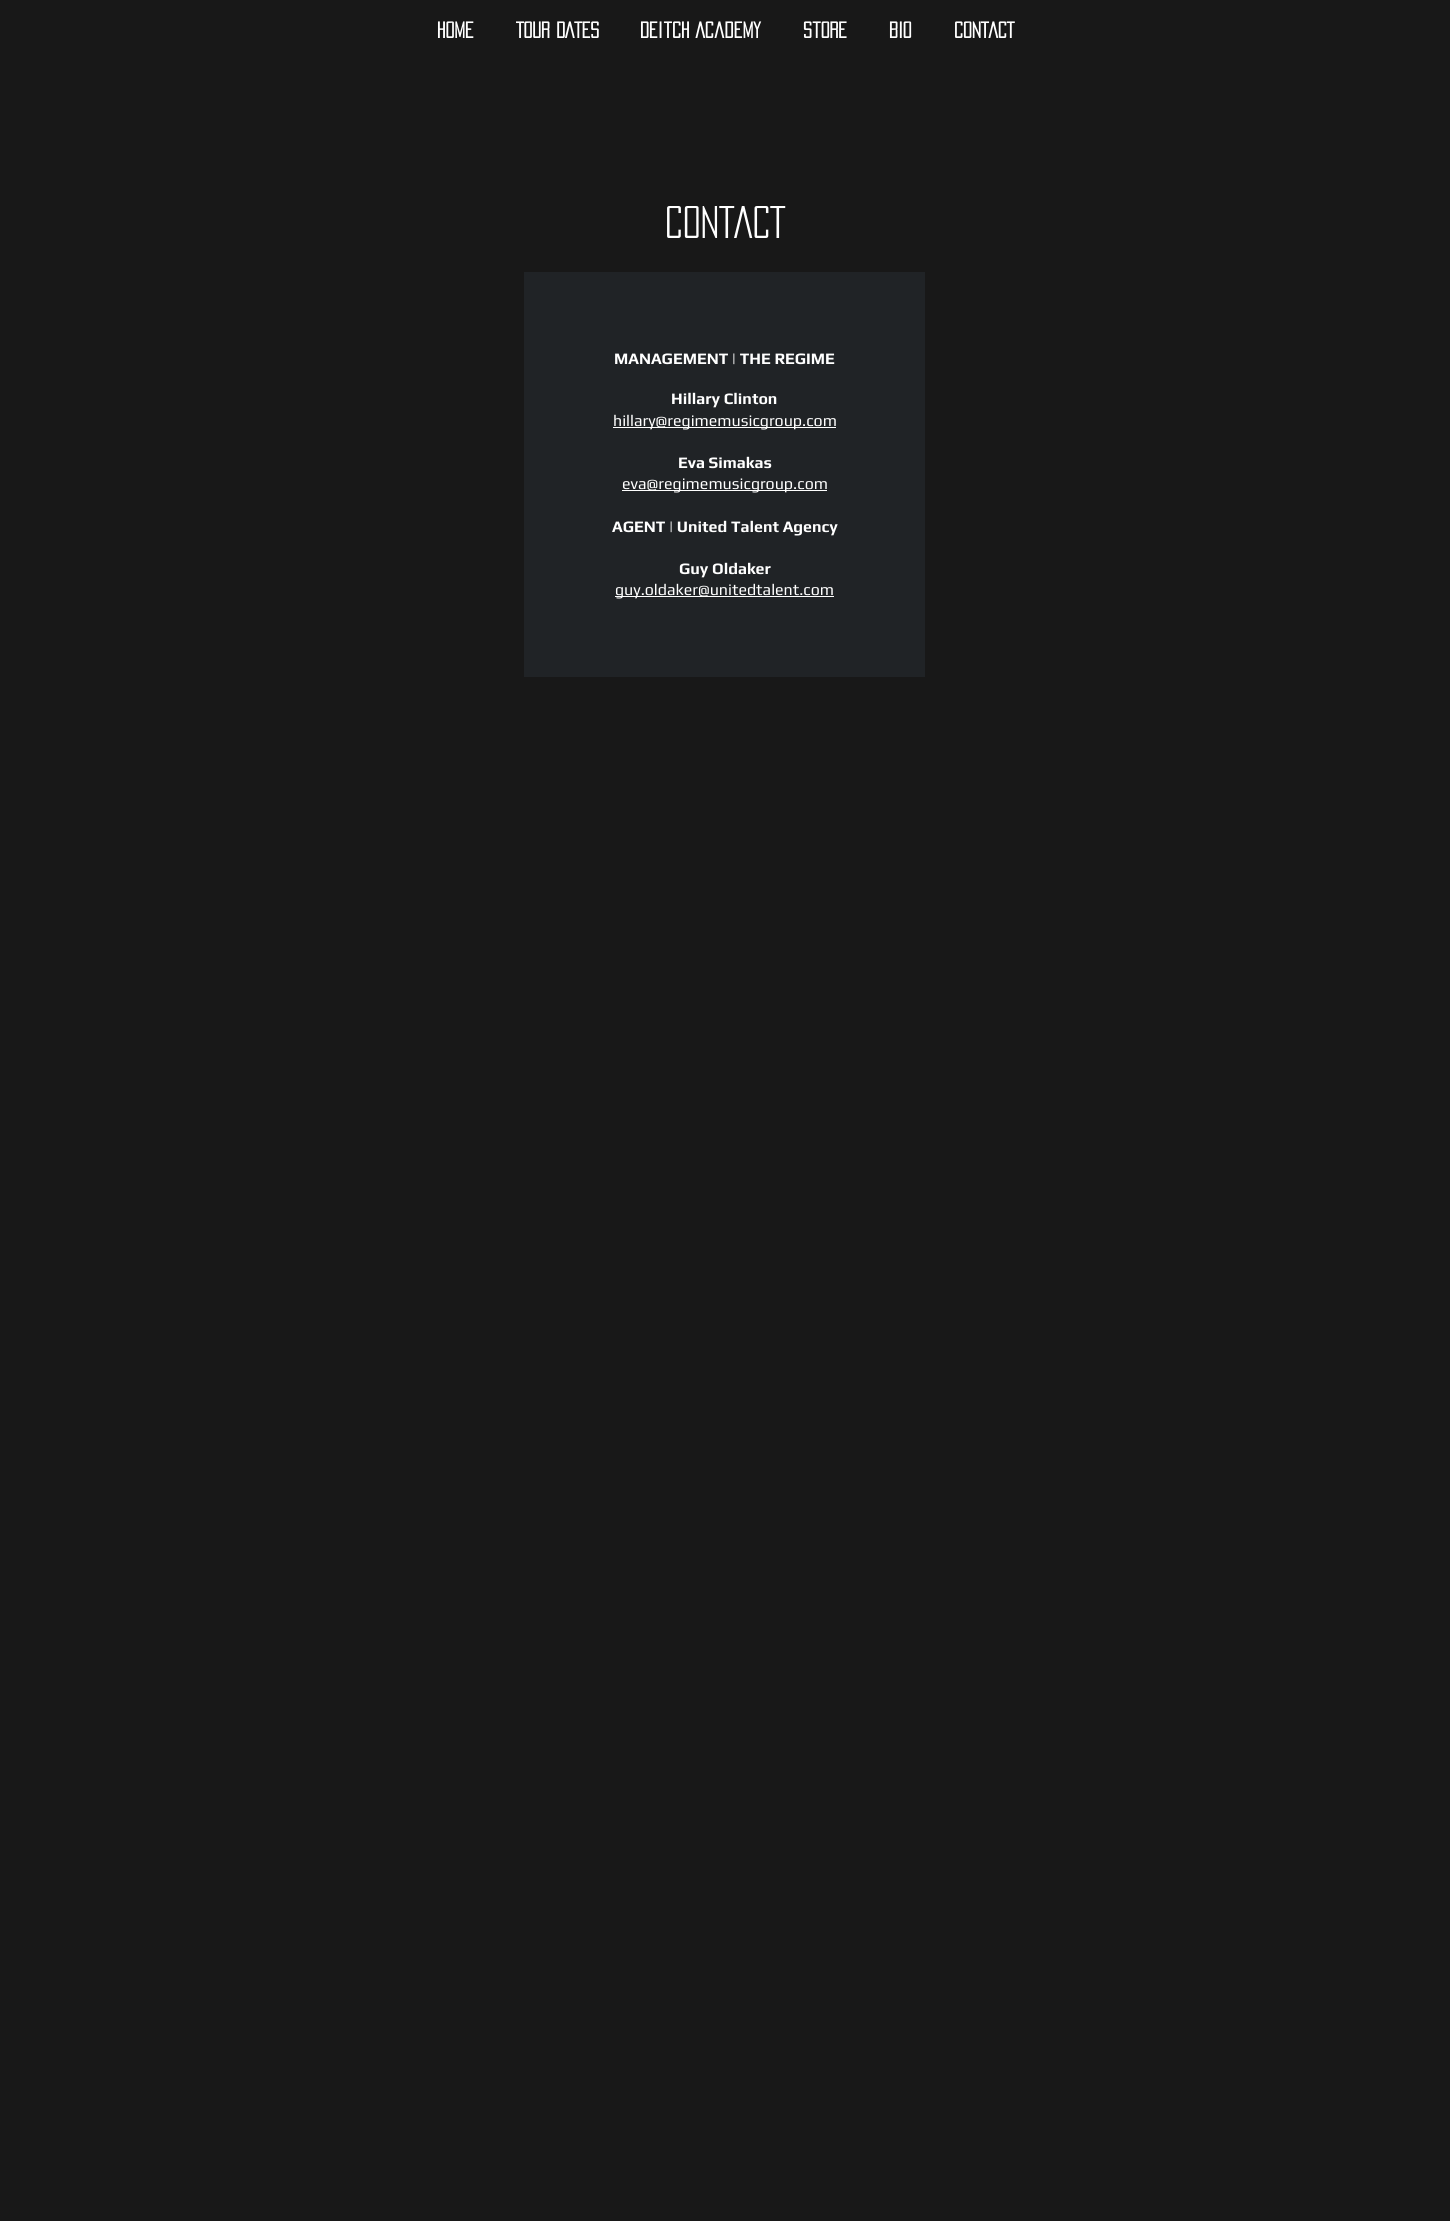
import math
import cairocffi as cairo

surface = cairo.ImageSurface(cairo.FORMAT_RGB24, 1450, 2221)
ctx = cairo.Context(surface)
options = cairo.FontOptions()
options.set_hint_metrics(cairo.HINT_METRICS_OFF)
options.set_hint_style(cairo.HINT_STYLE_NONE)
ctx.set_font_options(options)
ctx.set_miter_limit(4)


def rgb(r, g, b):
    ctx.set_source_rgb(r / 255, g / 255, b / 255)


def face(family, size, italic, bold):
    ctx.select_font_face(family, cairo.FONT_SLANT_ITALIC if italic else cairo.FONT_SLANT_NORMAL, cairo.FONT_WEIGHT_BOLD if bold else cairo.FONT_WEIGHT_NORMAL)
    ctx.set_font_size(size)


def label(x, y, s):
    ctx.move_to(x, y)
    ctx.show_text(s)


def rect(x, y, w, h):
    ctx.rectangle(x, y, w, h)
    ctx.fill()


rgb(24, 24, 24)
ctx.paint()
face('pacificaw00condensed', 20, 0, 1)
rgb(255, 255, 255)
label(437, 38, 'HOME')
label(516, 38, 'TOUR DATES')
label(640, 38, 'Deitch Academy')
label(803, 38, 'Store')
label(889, 38, 'BIO')
label(954, 38, 'CONTACT')
face('pacificaw00condensed', 40, 0, 0)
label(665, 238, 'CONTACT')
rgb(32, 35, 38)
rect(524, 272, 401, 405)
face('Play', 16, 0, 1)
rgb(255, 255, 255)
label(614, 364, 'MANAGEMENT | THE REGIME')
label(671, 404, 'Hillary Clinton')
rect(613, 427, 223, 1)
face('Play', 16, 0, 0)
label(613, 426, 'hillary@regimemusicgroup.com')
face('Play', 16, 0, 1)
label(678, 468, 'Eva Simakas')
rect(622, 490, 205, 1)
face('Play', 16, 0, 0)
label(622, 489, 'eva@regimemusicgroup.com')
face('Play', 16, 0, 1)
label(612, 532, 'AGENT | United Talent Agency')
label(679, 574, 'Guy Oldaker')
rect(615, 596, 219, 1)
face('Play', 16, 0, 0)
label(615, 595, 'guy.oldaker@unitedtalent.com')
surface.write_to_png('render.png')
